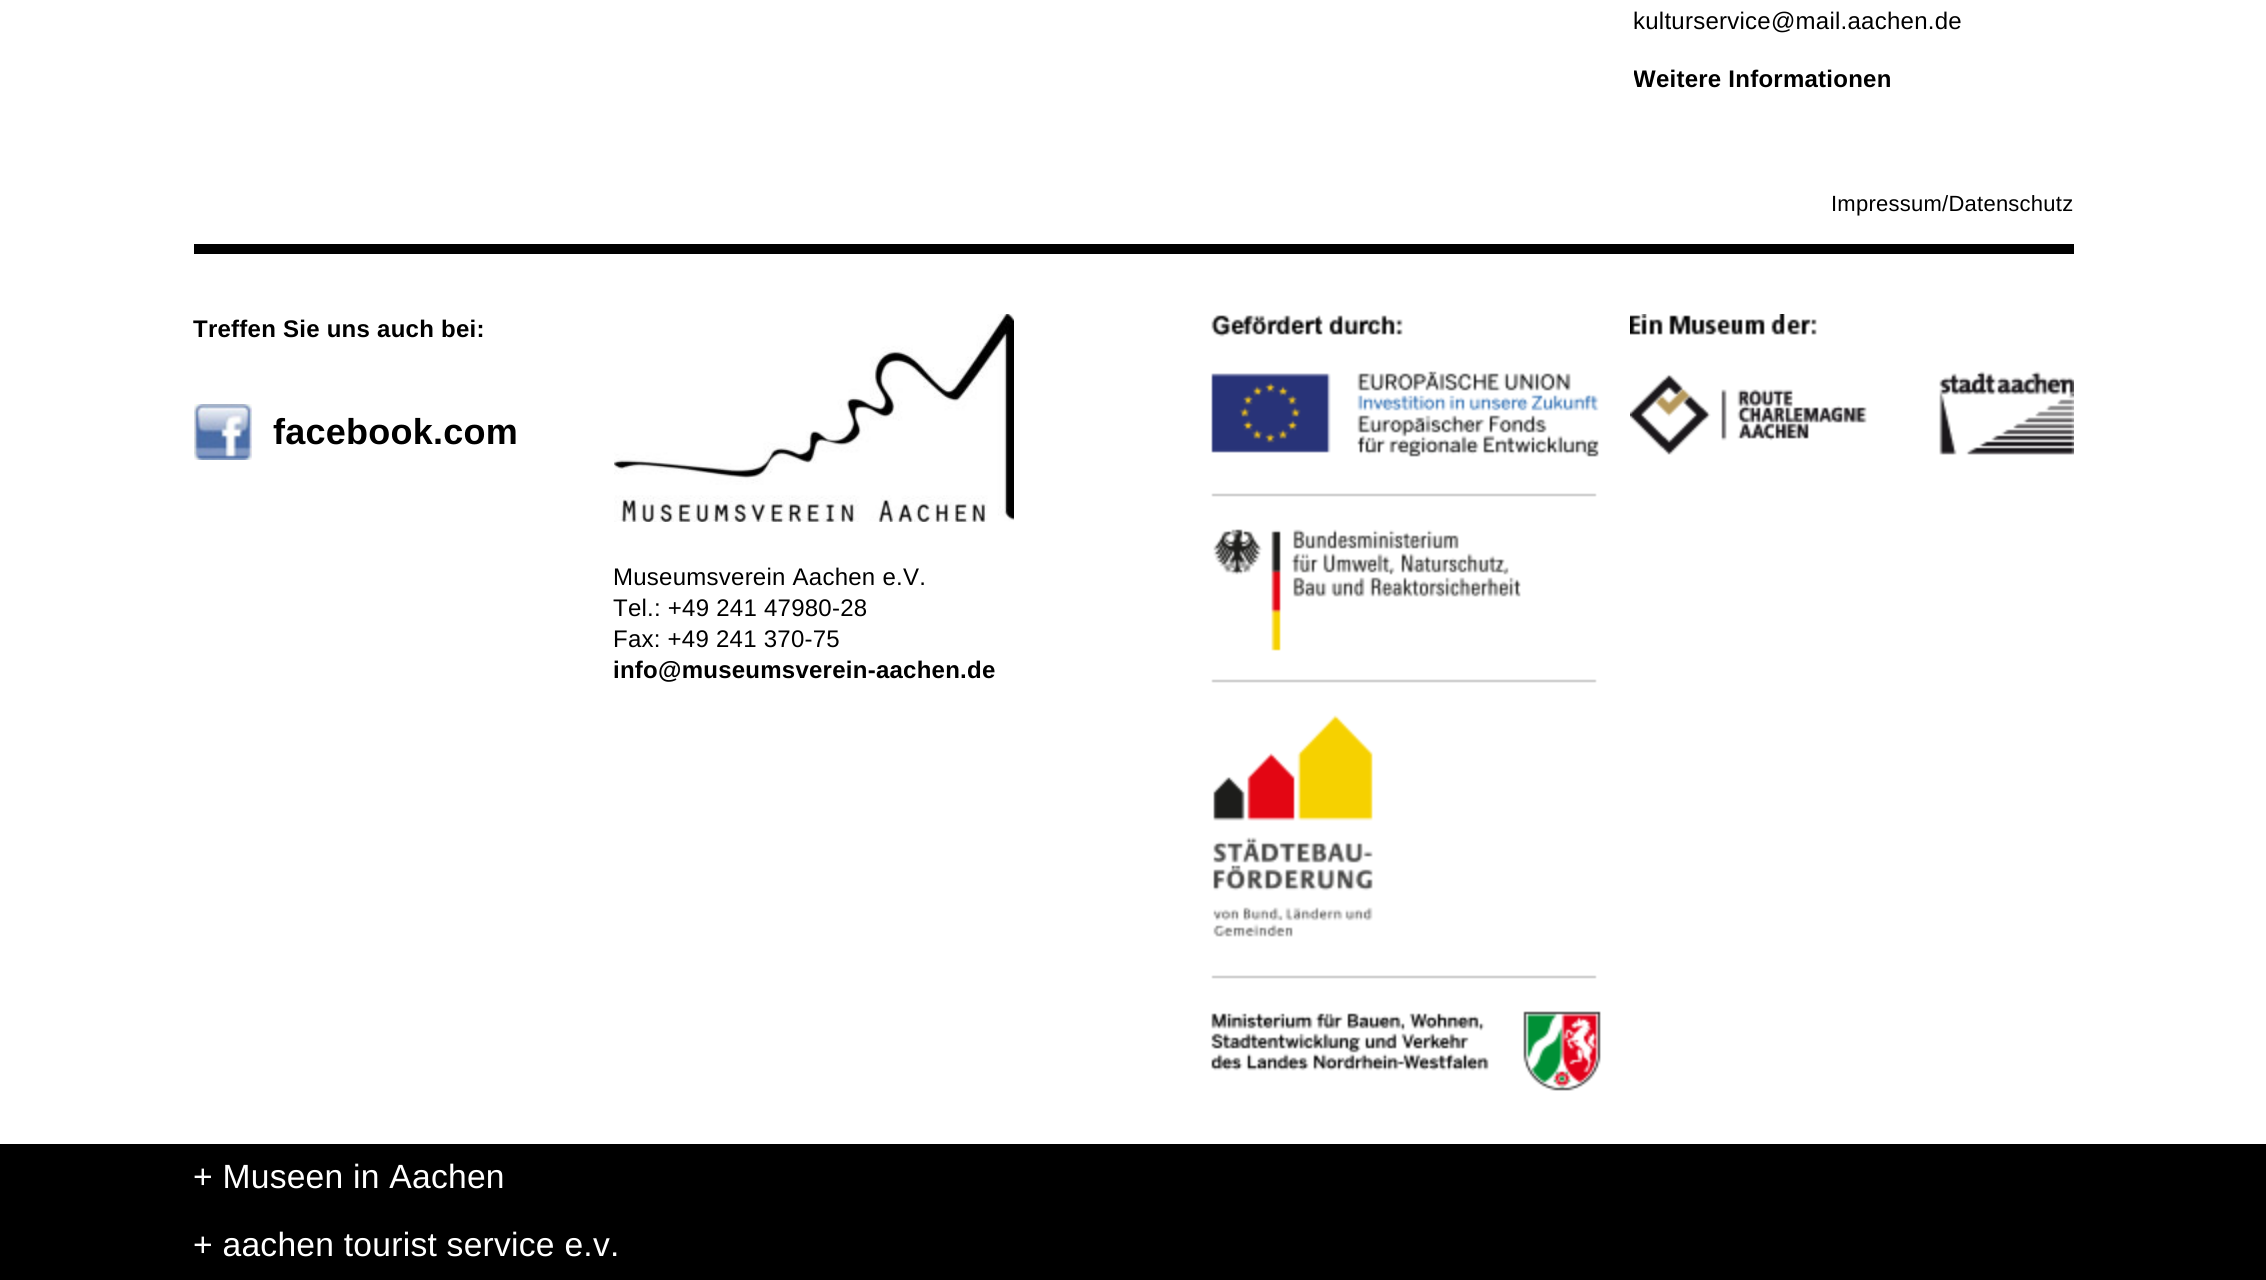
import math
import cairocffi as cairo

surface = cairo.ImageSurface(cairo.FORMAT_RGB24, 2266, 1280)
ctx = cairo.Context(surface)
options = cairo.FontOptions()
options.set_hint_metrics(cairo.HINT_METRICS_OFF)
options.set_hint_style(cairo.HINT_STYLE_NONE)
ctx.set_font_options(options)
ctx.set_miter_limit(4)


def rgb(r, g, b):
    ctx.set_source_rgb(r / 255, g / 255, b / 255)


def face(family, size, italic, bold):
    ctx.select_font_face(family, cairo.FONT_SLANT_ITALIC if italic else cairo.FONT_SLANT_NORMAL, cairo.FONT_WEIGHT_BOLD if bold else cairo.FONT_WEIGHT_NORMAL)
    ctx.set_font_size(size)


def tracked(x, y, s, letter, word):
    ctx.move_to(x, y)
    for ch in s:
        ctx.show_text(ch)
        ctx.rel_move_to(letter + word * (ch == ' '), 0)


def rect(x, y, w, h):
    ctx.rectangle(x, y, w, h)
    ctx.fill()


def image(path, x, y, w, h):
    ctx.save()
    ctx.set_source_surface(cairo.ImageSurface.create_from_png(path), x, y)
    ctx.rectangle(x, y, w, h)
    ctx.fill()
    ctx.restore()


rgb(255, 255, 255)
ctx.paint()
face('Liberation Sans', 24, 0, 0)
rgb(0, 0, 0)
tracked(1633, 29, 'kulturservice@mail.aachen.de', 0.25, 0)
ctx.save()
ctx.rectangle(1634, 0, 440, 144)
ctx.clip()
face('Liberation Sans', 24, 0, 1)
tracked(1633, 87, 'Weitere Informationen', 0.25, 0)
ctx.restore()
face('Liberation Sans', 22, 0, 0)
tracked(1831, 211, 'Impressum/Datenschutz', 0.25, 0)
rect(194, 244, 1880, 10)
face('Liberation Sans', 24, 0, 1)
tracked(193, 337, 'Treffen Sie uns auch bei:', 0.25, 0)
image('image0.png', 194, 404, 58, 56)
face('Liberation Sans', 36, 0, 1)
tracked(273, 444, 'facebook.com', 0.25, 0)
image('image1.png', 1211, 315, 390, 776)
image('image2.png', 1630, 314, 444, 141)
image('image3.png', 614, 314, 400, 208)
face('Liberation Sans', 24, 0, 0)
tracked(613, 585, 'Museumsverein Aachen e.V.', 0.25, 0)
tracked(613, 616, 'Tel.: +49 241 47980-28', 0.25, 0)
tracked(613, 647, 'Fax: +49 241 370-75', 0.25, 0)
face('Liberation Sans', 24, 0, 1)
tracked(613, 678, 'info@museumsverein-aachen.de', 0.25, 0)
rect(0, 1144, 2266, 136)
face('Liberation Sans', 33.6, 0, 0)
rgb(255, 255, 255)
tracked(193, 1188, '+ Museen in Aachen', 0.25, 0)
tracked(193, 1256, '+ aachen tourist service e.v.', 0.25, 0)
surface.write_to_png('render.png')
